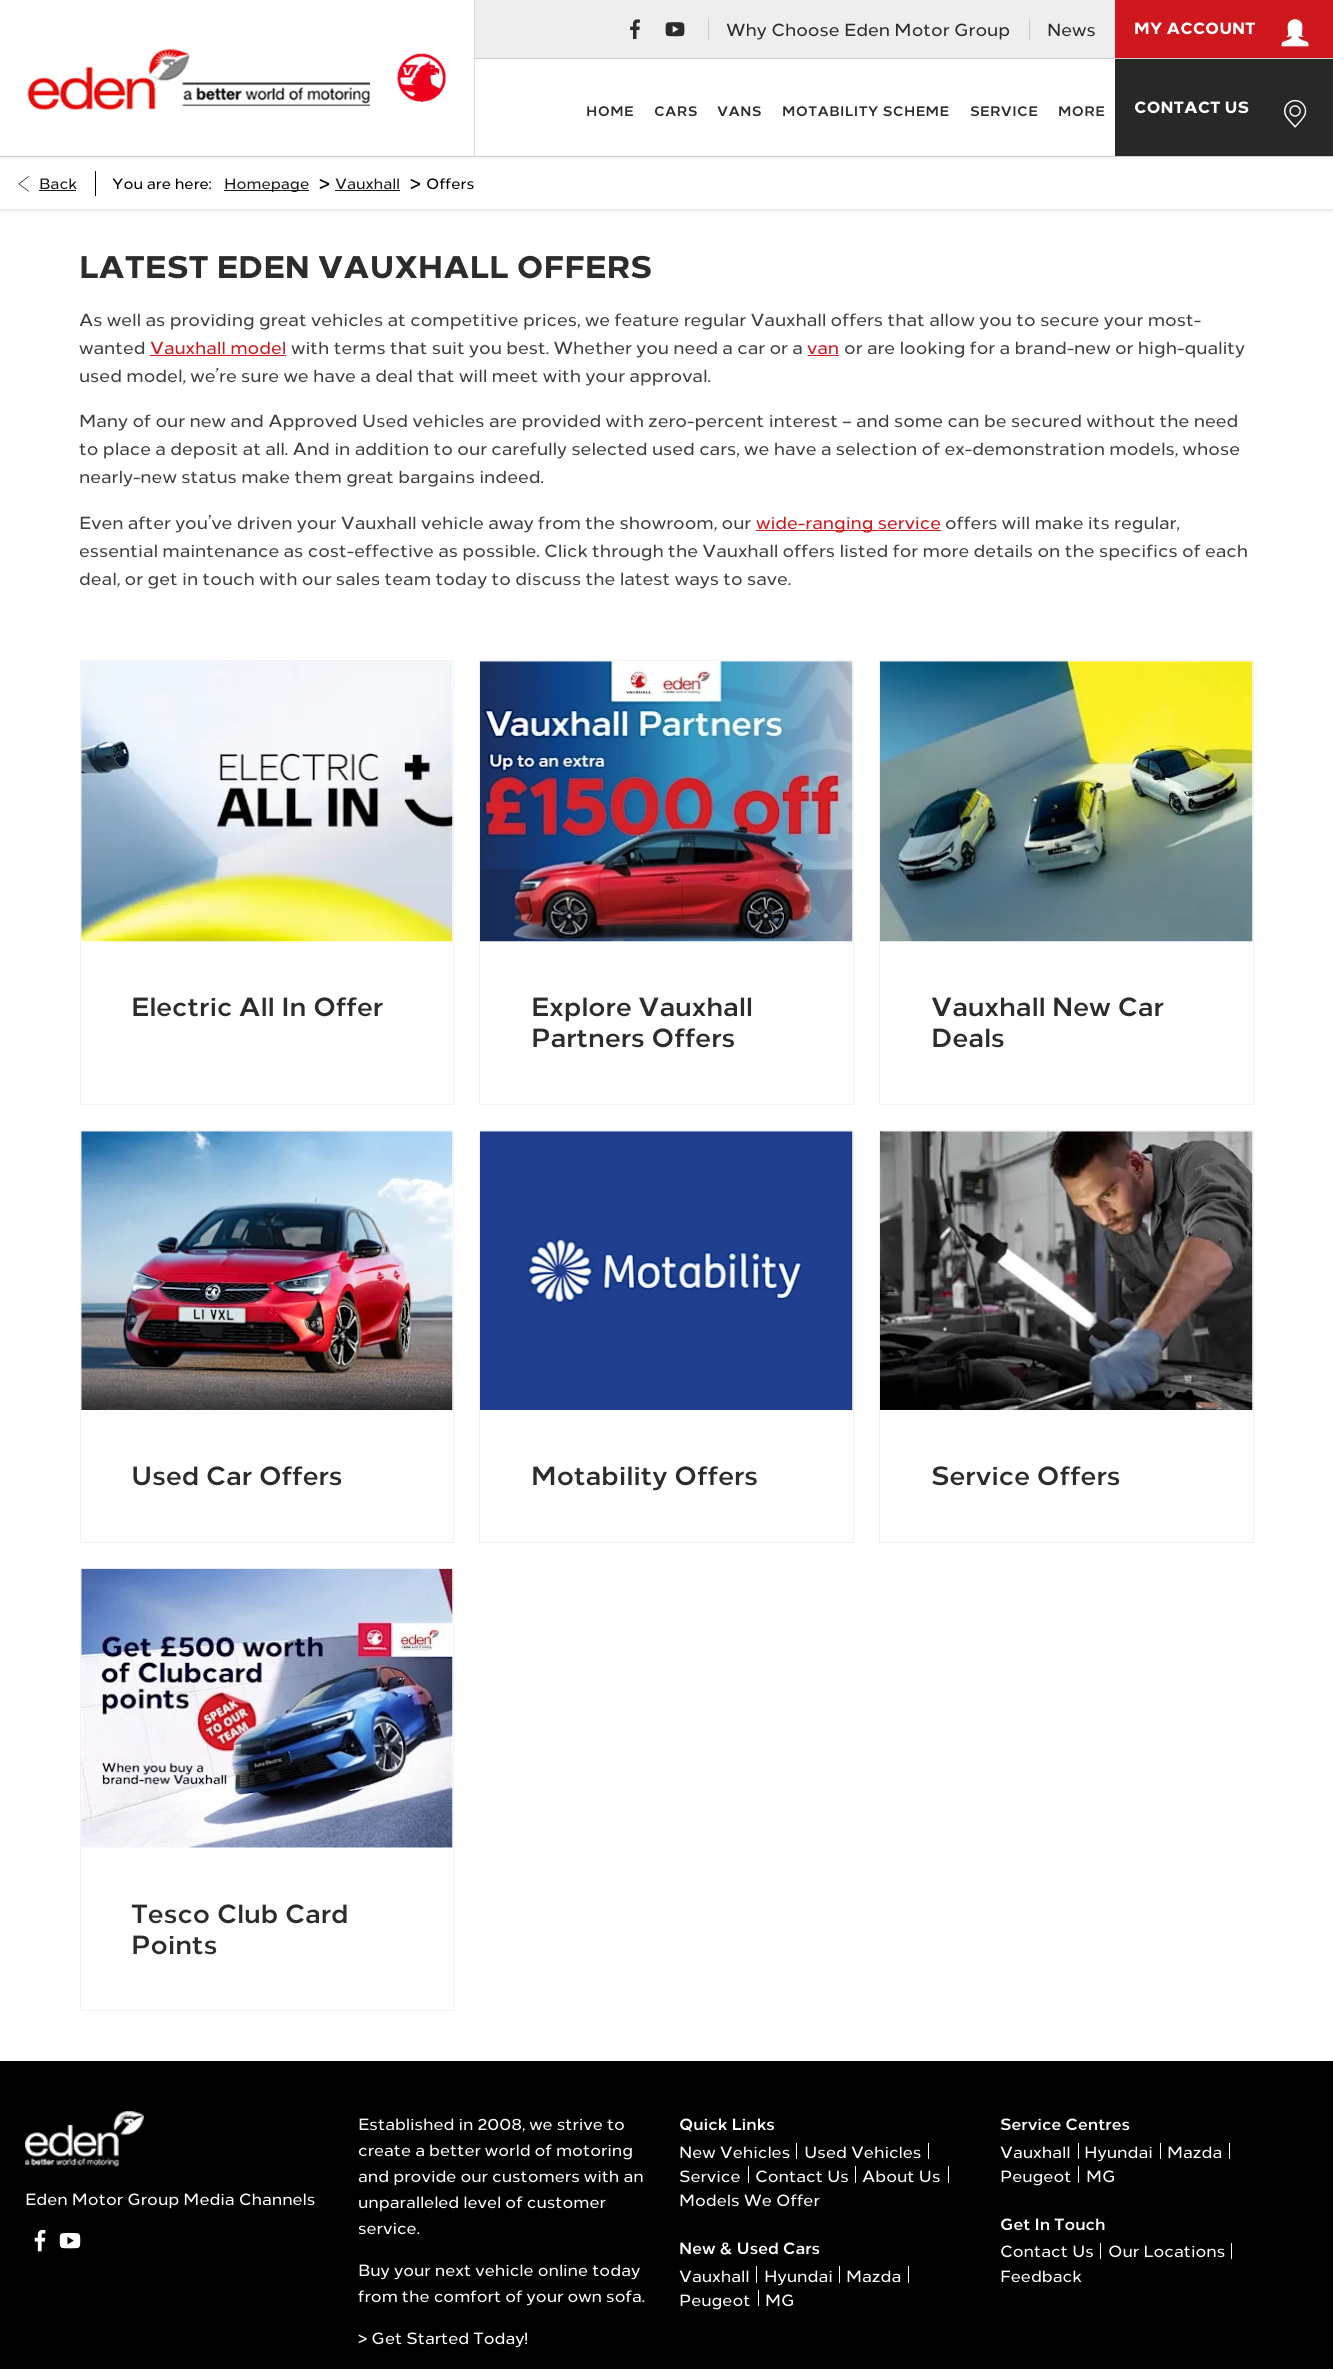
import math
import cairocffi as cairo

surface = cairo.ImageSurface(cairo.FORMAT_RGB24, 1333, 2369)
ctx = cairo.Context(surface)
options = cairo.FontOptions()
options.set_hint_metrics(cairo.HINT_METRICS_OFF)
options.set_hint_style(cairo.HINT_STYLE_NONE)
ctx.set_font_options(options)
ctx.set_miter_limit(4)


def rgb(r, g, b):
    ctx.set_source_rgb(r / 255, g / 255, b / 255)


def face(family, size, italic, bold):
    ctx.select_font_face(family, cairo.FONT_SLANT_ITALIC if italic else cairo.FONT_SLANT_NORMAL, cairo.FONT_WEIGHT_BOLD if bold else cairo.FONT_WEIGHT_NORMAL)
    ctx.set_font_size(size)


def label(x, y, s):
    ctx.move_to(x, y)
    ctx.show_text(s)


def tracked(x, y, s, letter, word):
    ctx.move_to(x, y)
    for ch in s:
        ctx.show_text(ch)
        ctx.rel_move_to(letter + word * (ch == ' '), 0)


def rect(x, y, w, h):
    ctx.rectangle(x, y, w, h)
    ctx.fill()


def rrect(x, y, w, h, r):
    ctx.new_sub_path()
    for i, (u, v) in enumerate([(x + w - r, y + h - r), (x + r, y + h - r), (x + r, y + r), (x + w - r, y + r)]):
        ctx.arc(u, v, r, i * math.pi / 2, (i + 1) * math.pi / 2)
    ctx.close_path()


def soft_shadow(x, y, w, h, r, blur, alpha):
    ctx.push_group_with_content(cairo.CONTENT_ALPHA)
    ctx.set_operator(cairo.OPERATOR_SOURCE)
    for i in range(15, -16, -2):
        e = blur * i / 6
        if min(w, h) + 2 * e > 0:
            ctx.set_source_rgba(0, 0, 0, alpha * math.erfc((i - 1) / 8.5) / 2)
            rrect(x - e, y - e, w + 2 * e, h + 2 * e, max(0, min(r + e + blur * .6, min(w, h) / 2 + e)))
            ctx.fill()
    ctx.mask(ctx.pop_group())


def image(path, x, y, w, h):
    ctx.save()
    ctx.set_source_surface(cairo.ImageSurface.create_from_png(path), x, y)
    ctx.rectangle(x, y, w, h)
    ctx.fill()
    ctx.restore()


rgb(255, 255, 255)
ctx.paint()
ctx.save()
ctx.set_fill_rule(cairo.FILL_RULE_EVEN_ODD)
ctx.new_path()
ctx.move_to(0, 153)
ctx.line_to(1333, 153)
ctx.line_to(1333, 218)
ctx.line_to(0, 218)
ctx.close_path()
ctx.move_to(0, 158)
ctx.line_to(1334, 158)
ctx.line_to(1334, 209)
ctx.line_to(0, 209)
ctx.close_path()
ctx.clip()
rgb(0, 0, 0)
soft_shadow(0, 160, 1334, 51, 0, 2, 0.1)
ctx.restore()
rgb(205, 205, 205)
rect(0, 156, 1333, 1)
image('image0.png', 27, 48, 343, 62)
image('image1.png', 397, 53, 49, 49)
rgb(221, 221, 221)
rect(474, 0, 1, 156)
rgb(238, 238, 238)
rect(475, 0, 640, 58)
image('image2.png', 630, 19, 10, 20)
image('image3.png', 665, 22, 20, 15)
rgb(205, 205, 205)
rect(708, 19, 1, 21)
face('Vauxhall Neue', 17.5, 0, 0)
rgb(44, 44, 44)
label(726, 36, 'Why Choose Eden Motor Group')
rgb(205, 205, 205)
rect(1029, 19, 1, 21)
rgb(44, 44, 44)
label(1047, 36, 'News')
rgb(206, 24, 30)
rect(1115, 0, 218, 58)
face('Vauxhall Neue ExtraBold', 16.25, 0, 0)
rgb(255, 255, 255)
label(1134, 34, 'MY ACCOUNT')
image('image4.png', 1281, 19, 28, 28)
rgb(205, 205, 205)
rect(475, 58, 858, 1)
face('Vauxhall Neue', 13.75, 0, 1)
rgb(44, 44, 44)
tracked(586, 116, 'HOME', 0.4, 0)
tracked(654, 116, 'CARS', 0.4, 0)
tracked(717, 116, 'VANS', 0.4, 0)
tracked(782, 116, 'MOTABILITY SCHEME', 0.4, 0)
tracked(970, 116, 'SERVICE', 0.4, 0)
tracked(1058, 116, 'MORE', 0.4, 0)
rgb(40, 40, 40)
rect(1115, 59, 218, 97)
face('Vauxhall Neue ExtraBold', 16.25, 0, 0)
rgb(255, 255, 255)
label(1134, 113, 'CONTACT US')
image('image5.png', 1284, 99, 23, 29)
rgb(242, 242, 242)
rect(0, 158, 1333, 1)
image('image6.png', 18, 176, 11, 16)
face('Vauxhall Neue', 15, 0, 0)
rgb(26, 26, 26)
label(39, 189, 'Back')
rect(39, 190, 37, 1)
rgb(0, 0, 0)
rect(95, 171, 1, 25)
label(112, 189, 'You are here:')
rgb(26, 26, 26)
rect(224, 190, 85, 1)
label(224, 189, 'Homepage')
face('Vauxhall Neue', 19, 0, 0)
rgb(0, 0, 0)
label(319, 190, '>')
face('Vauxhall Neue', 15, 0, 0)
rgb(26, 26, 26)
label(335, 189, 'Vauxhall')
rect(335, 190, 65, 1)
face('Vauxhall Neue', 19, 0, 0)
rgb(0, 0, 0)
label(410, 190, '>')
face('Vauxhall Neue', 15, 0, 0)
label(426, 189, 'Offers')
face('Vauxhall Neue ExtraBold', 31.25, 0, 0)
rgb(44, 44, 44)
label(79, 278, 'LATEST EDEN VAUXHALL OFFERS')
face('Vauxhall Neue', 17.5, 0, 0)
rgb(64, 64, 64)
label(79, 326, 'As well as providing great vehicles at competitive prices, we feature regular Vauxhall offers that allow you to secure your most-')
label(79, 354, 'wanted')
rgb(206, 24, 30)
label(150, 354, 'Vauxhall model')
rect(150, 355, 136, 1)
rgb(64, 64, 64)
label(291, 354, 'with terms that suit you best. Whether you need a car or a')
rgb(206, 24, 30)
label(807, 354, 'van')
rect(808, 355, 31, 1)
rgb(64, 64, 64)
label(844, 354, 'or are looking for a brand-new or high-quality')
label(79, 382, 'used model, we’re sure we have a deal that will meet with your approval.')
label(79, 427, 'Many of our new and Approved Used vehicles are provided with zero-percent interest – and some can be secured without the need')
label(79, 455, 'to place a deposit at all. And in addition to our carefully selected used cars, we have a selection of ex-demonstration models, whose')
label(79, 483, 'nearly-new status make them great bargains indeed.')
label(79, 529, 'Even after you’ve driven your Vauxhall vehicle away from the showroom, our')
rgb(206, 24, 30)
rect(756, 530, 185, 1)
label(756, 529, 'wide-ranging service')
rgb(64, 64, 64)
label(945, 529, 'offers will make its regular,')
label(79, 557, 'essential maintenance as cost-effective as possible. Click through the Vauxhall offers listed for more details on the specifics of each')
label(79, 585, 'deal, or get in touch with our sales team today to discuss the latest ways to save.')
ctx.rectangle(80.5, 660.5, 373, 444)
rgb(242, 242, 242)
ctx.set_line_width(1)
ctx.stroke()
image('image7.png', 81, 661, 372, 281)
face('Vauxhall Neue', 26.25, 0, 1)
rgb(44, 44, 44)
label(131, 1016, 'Electric All In Offer')
ctx.rectangle(479.5, 660.5, 374, 444)
rgb(242, 242, 242)
ctx.stroke()
image('image8.png', 480, 661, 373, 281)
rgb(44, 44, 44)
label(531, 1016, 'Explore Vauxhall')
label(531, 1047, 'Partners Offers')
ctx.rectangle(879.5, 660.5, 374, 444)
rgb(242, 242, 242)
ctx.stroke()
image('image9.png', 880, 661, 373, 281)
rgb(44, 44, 44)
label(931, 1016, 'Vauxhall New Car')
label(931, 1047, 'Deals')
ctx.rectangle(80.5, 1130.5, 373, 412)
rgb(242, 242, 242)
ctx.stroke()
image('image10.png', 81, 1131, 372, 279)
rgb(44, 44, 44)
label(131, 1485, 'Used Car Offers')
ctx.rectangle(479.5, 1130.5, 374, 412)
rgb(242, 242, 242)
ctx.stroke()
image('image11.png', 480, 1131, 373, 279)
rgb(44, 44, 44)
label(531, 1485, 'Motability Offers')
ctx.rectangle(879.5, 1130.5, 374, 412)
rgb(242, 242, 242)
ctx.stroke()
image('image12.png', 880, 1131, 373, 279)
rgb(44, 44, 44)
label(931, 1485, 'Service Offers')
ctx.rectangle(80.5, 1568.5, 373, 442)
rgb(242, 242, 242)
ctx.stroke()
image('image13.png', 81, 1568, 372, 280)
rgb(44, 44, 44)
label(131, 1923, 'Tesco Club Card')
label(131, 1954, 'Points')
rgb(0, 0, 0)
rect(0, 2061, 1333, 308)
image('image14.png', 25, 2111, 119, 56)
face('Vauxhall Neue', 16.25, 0, 0)
rgb(255, 255, 255)
label(25, 2205, 'Eden Motor Group Media Channels')
image('image15.png', 34, 2229, 12, 23)
image('image16.png', 59, 2232, 22, 17)
label(358, 2130, 'Established in 2008, we strive to')
label(358, 2156, 'create a better world of motoring')
label(358, 2182, 'and provide our customers with an')
label(358, 2208, 'unparalleled level of customer')
label(358, 2234, 'service.')
label(358, 2276, 'Buy your next vehicle online today')
label(358, 2302, 'from the comfort of your own sofa.')
label(358, 2344, '> Get Started Today!')
face('Vauxhall Neue', 16.25, 0, 1)
label(679, 2130, 'Quick Links')
face('Vauxhall Neue', 16.25, 0, 0)
label(679, 2158, 'New Vehicles')
rect(796, 2143, 1, 16)
label(804, 2158, 'Used Vehicles')
rect(928, 2143, 1, 16)
label(679, 2182, 'Service')
rect(748, 2166, 1, 17)
label(755, 2182, 'Contact Us')
rect(855, 2166, 1, 17)
label(862, 2182, 'About Us')
rect(948, 2166, 1, 17)
label(679, 2206, 'Models We Offer')
face('Vauxhall Neue', 16.25, 0, 1)
label(679, 2254, 'New & Used Cars')
face('Vauxhall Neue', 16.25, 0, 0)
label(679, 2282, 'Vauxhall')
rect(756, 2266, 1, 17)
label(764, 2282, 'Hyundai')
rect(839, 2266, 1, 17)
label(846, 2282, 'Mazda')
rect(908, 2266, 1, 17)
label(679, 2306, 'Peugeot')
rect(758, 2290, 1, 16)
label(765, 2306, 'MG')
face('Vauxhall Neue', 16.25, 0, 1)
label(1000, 2130, 'Service Centres')
face('Vauxhall Neue', 16.25, 0, 0)
label(1000, 2158, 'Vauxhall')
rect(1078, 2143, 1, 16)
label(1084, 2158, 'Hyundai')
rect(1160, 2143, 1, 16)
label(1167, 2158, 'Mazda')
rect(1229, 2143, 1, 16)
label(1000, 2182, 'Peugeot')
rect(1078, 2166, 1, 17)
label(1086, 2182, 'MG')
face('Vauxhall Neue', 16.25, 0, 1)
label(1000, 2230, 'Get In Touch')
face('Vauxhall Neue', 16.25, 0, 0)
label(1000, 2257, 'Contact Us')
rect(1100, 2243, 1, 16)
label(1108, 2257, 'Our Locations')
rect(1231, 2243, 1, 16)
label(1000, 2282, 'Feedback')
surface.write_to_png('render.png')
